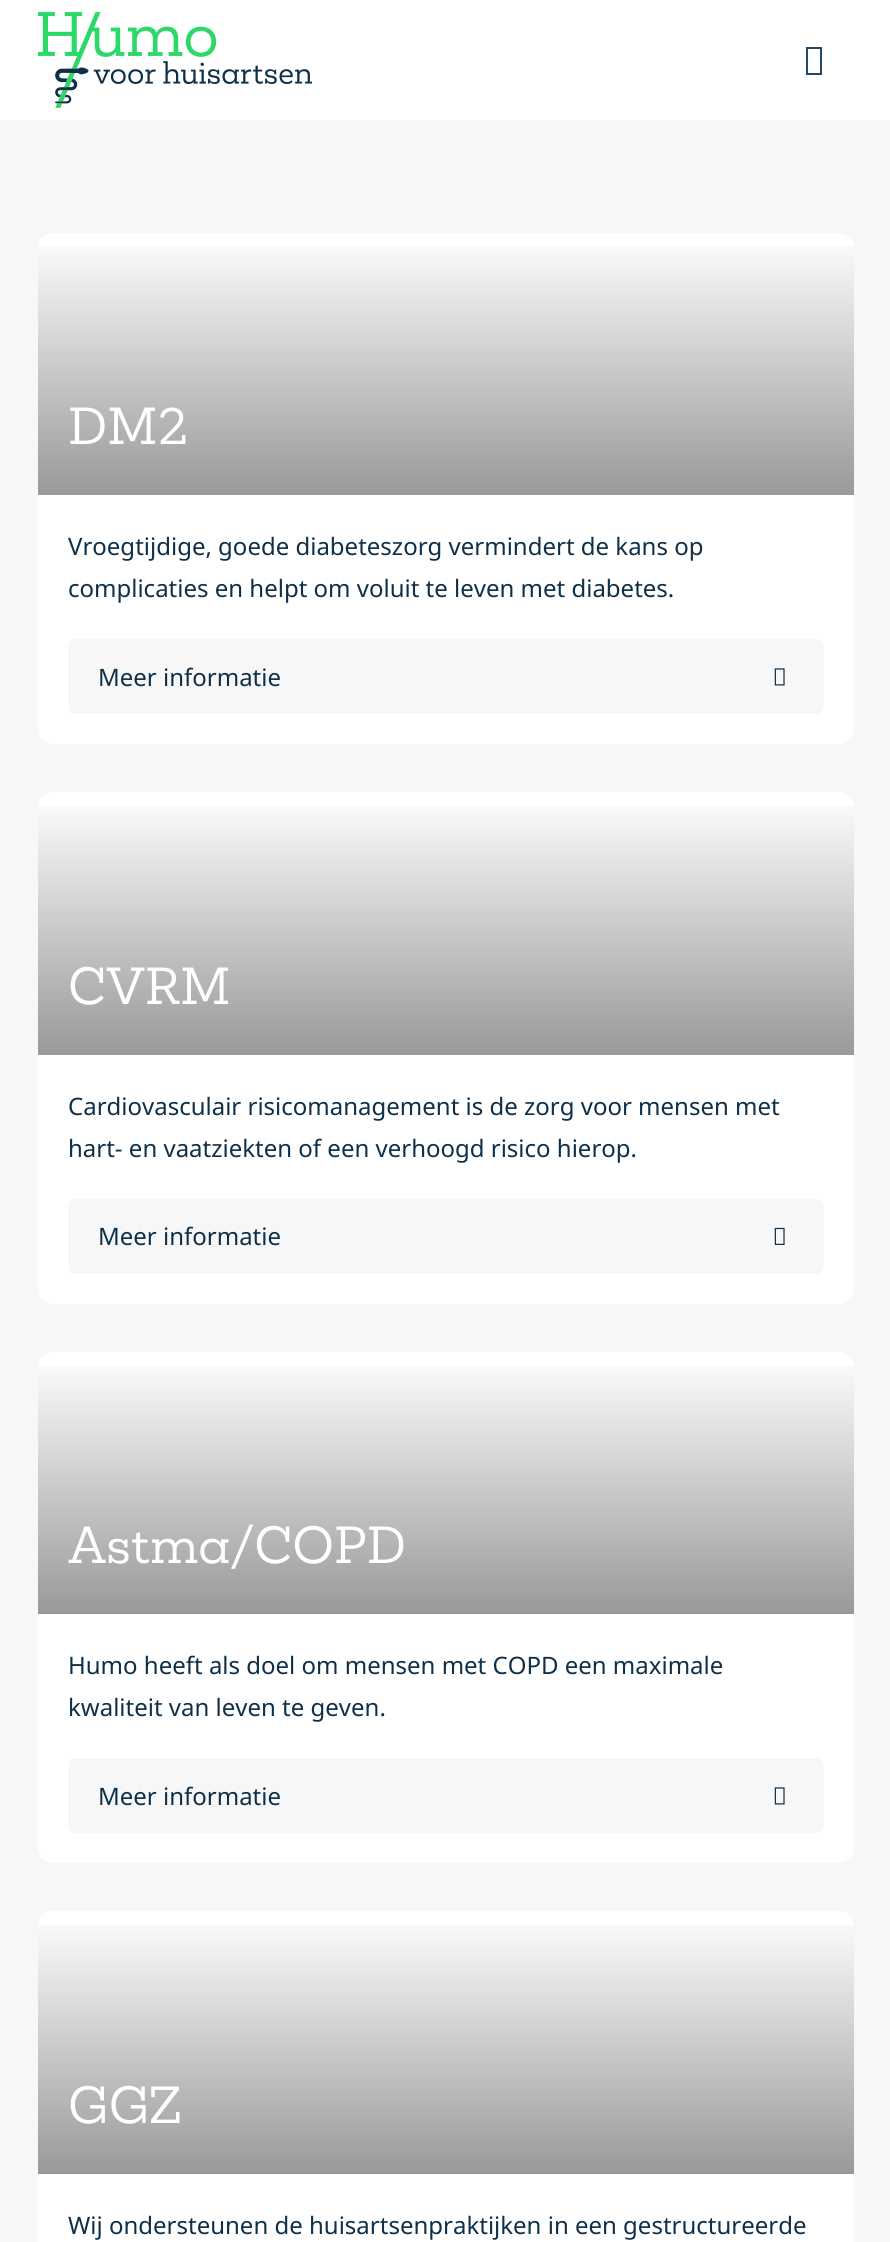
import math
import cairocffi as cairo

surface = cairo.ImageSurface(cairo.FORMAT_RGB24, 890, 2242)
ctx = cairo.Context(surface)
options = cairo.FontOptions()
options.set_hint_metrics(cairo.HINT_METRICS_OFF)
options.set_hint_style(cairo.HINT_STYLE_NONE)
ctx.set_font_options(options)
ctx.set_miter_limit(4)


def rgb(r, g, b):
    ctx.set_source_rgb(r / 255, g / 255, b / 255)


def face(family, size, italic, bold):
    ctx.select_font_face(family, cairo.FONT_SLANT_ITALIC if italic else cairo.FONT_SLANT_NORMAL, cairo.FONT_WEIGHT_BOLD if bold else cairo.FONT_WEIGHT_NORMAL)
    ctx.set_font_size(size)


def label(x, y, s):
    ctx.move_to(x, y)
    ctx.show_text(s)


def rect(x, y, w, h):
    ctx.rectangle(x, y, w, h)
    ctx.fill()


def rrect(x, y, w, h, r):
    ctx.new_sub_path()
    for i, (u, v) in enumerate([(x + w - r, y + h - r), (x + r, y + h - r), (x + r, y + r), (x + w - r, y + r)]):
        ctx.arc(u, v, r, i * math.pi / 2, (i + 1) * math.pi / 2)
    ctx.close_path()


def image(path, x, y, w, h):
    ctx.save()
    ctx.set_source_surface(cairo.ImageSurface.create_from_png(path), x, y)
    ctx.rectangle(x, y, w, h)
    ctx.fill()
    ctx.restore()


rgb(247, 247, 247)
ctx.paint()
rgb(255, 255, 255)
rect(0, 0, 890, 120)
image('image0.png', 38, 12, 274, 96)
rgb(30, 72, 108)
ctx.new_path()
ctx.move_to(806, 75)
ctx.line_to(806, 47)
ctx.line_to(822, 47)
ctx.line_to(822, 75)
ctx.close_path()
ctx.move_to(808, 73)
ctx.line_to(820, 73)
ctx.line_to(820, 49)
ctx.line_to(808, 49)
ctx.close_path()
ctx.fill()
rgb(255, 255, 255)
rrect(38, 233, 816, 511, 15)
ctx.fill()
gradient = cairo.LinearGradient(446, 232, 446, 495)
gradient.add_color_stop_rgba(0, 0, 0, 0, 0)
gradient.add_color_stop_rgba(1, 0, 0, 0, 0.4)
ctx.set_source(gradient)
rect(38, 246, 816, 249)
face('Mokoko', 48, 0, 0)
rgb(255, 255, 255)
label(68, 444, 'DM2')
face('Noto Sans', 24, 0, 0)
rgb(14, 48, 73)
label(68, 555, 'Vroegtijdige, goede diabeteszorg vermindert de kans op')
label(68, 597, 'complicaties en helpt om voluit te leven met diabetes.')
rgb(247, 247, 247)
rrect(68, 639, 756, 75, 8)
ctx.fill()
rgb(14, 48, 73)
label(98, 686, 'Meer informatie')
image('image1.png', 774, 668, 11, 18)
rgb(255, 255, 255)
rrect(38, 792, 816, 512, 15)
ctx.fill()
gradient = cairo.LinearGradient(446, 792, 446, 1055)
gradient.add_color_stop_rgba(0, 0, 0, 0, 0)
gradient.add_color_stop_rgba(1, 0, 0, 0, 0.4)
ctx.set_source(gradient)
rect(38, 806, 816, 249)
face('Mokoko', 48, 0, 0)
rgb(255, 255, 255)
label(68, 1004, 'CVRM')
face('Noto Sans', 24, 0, 0)
rgb(14, 48, 73)
label(68, 1115, 'Cardiovasculair risicomanagement is de zorg voor mensen met')
label(68, 1157, 'hart- en vaatziekten of een verhoogd risico hierop.')
rgb(247, 247, 247)
rrect(68, 1199, 756, 75, 8)
ctx.fill()
rgb(14, 48, 73)
label(98, 1245, 'Meer informatie')
image('image2.png', 774, 1227, 11, 18)
rgb(255, 255, 255)
rrect(38, 1352, 816, 511, 15)
ctx.fill()
gradient = cairo.LinearGradient(446, 1352, 446, 1614)
gradient.add_color_stop_rgba(0, 0, 0, 0, 0)
gradient.add_color_stop_rgba(1, 0, 0, 0, 0.4)
ctx.set_source(gradient)
rect(38, 1366, 816, 248)
face('Mokoko', 48, 0, 0)
rgb(255, 255, 255)
label(68, 1563, 'Astma/COPD')
face('Noto Sans', 24, 0, 0)
rgb(14, 48, 73)
label(68, 1674, 'Humo heeft als doel om mensen met COPD een maximale')
label(68, 1716, 'kwaliteit van leven te geven.')
rgb(247, 247, 247)
rrect(68, 1758, 756, 75, 8)
ctx.fill()
rgb(14, 48, 73)
label(98, 1805, 'Meer informatie')
image('image1.png', 774, 1787, 11, 18)
rgb(255, 255, 255)
rrect(38, 1911, 816, 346, 15)
ctx.fill()
gradient = cairo.LinearGradient(446, 1911, 446, 2174)
gradient.add_color_stop_rgba(0, 0, 0, 0, 0)
gradient.add_color_stop_rgba(1, 0, 0, 0, 0.4)
ctx.set_source(gradient)
rect(38, 1925, 816, 249)
face('Mokoko', 48, 0, 0)
rgb(255, 255, 255)
label(68, 2123, 'GGZ')
face('Noto Sans', 24, 0, 0)
rgb(14, 48, 73)
label(68, 2234, 'Wij ondersteunen de huisartsenpraktijken in een gestructureerde')
surface.write_to_png('render.png')
